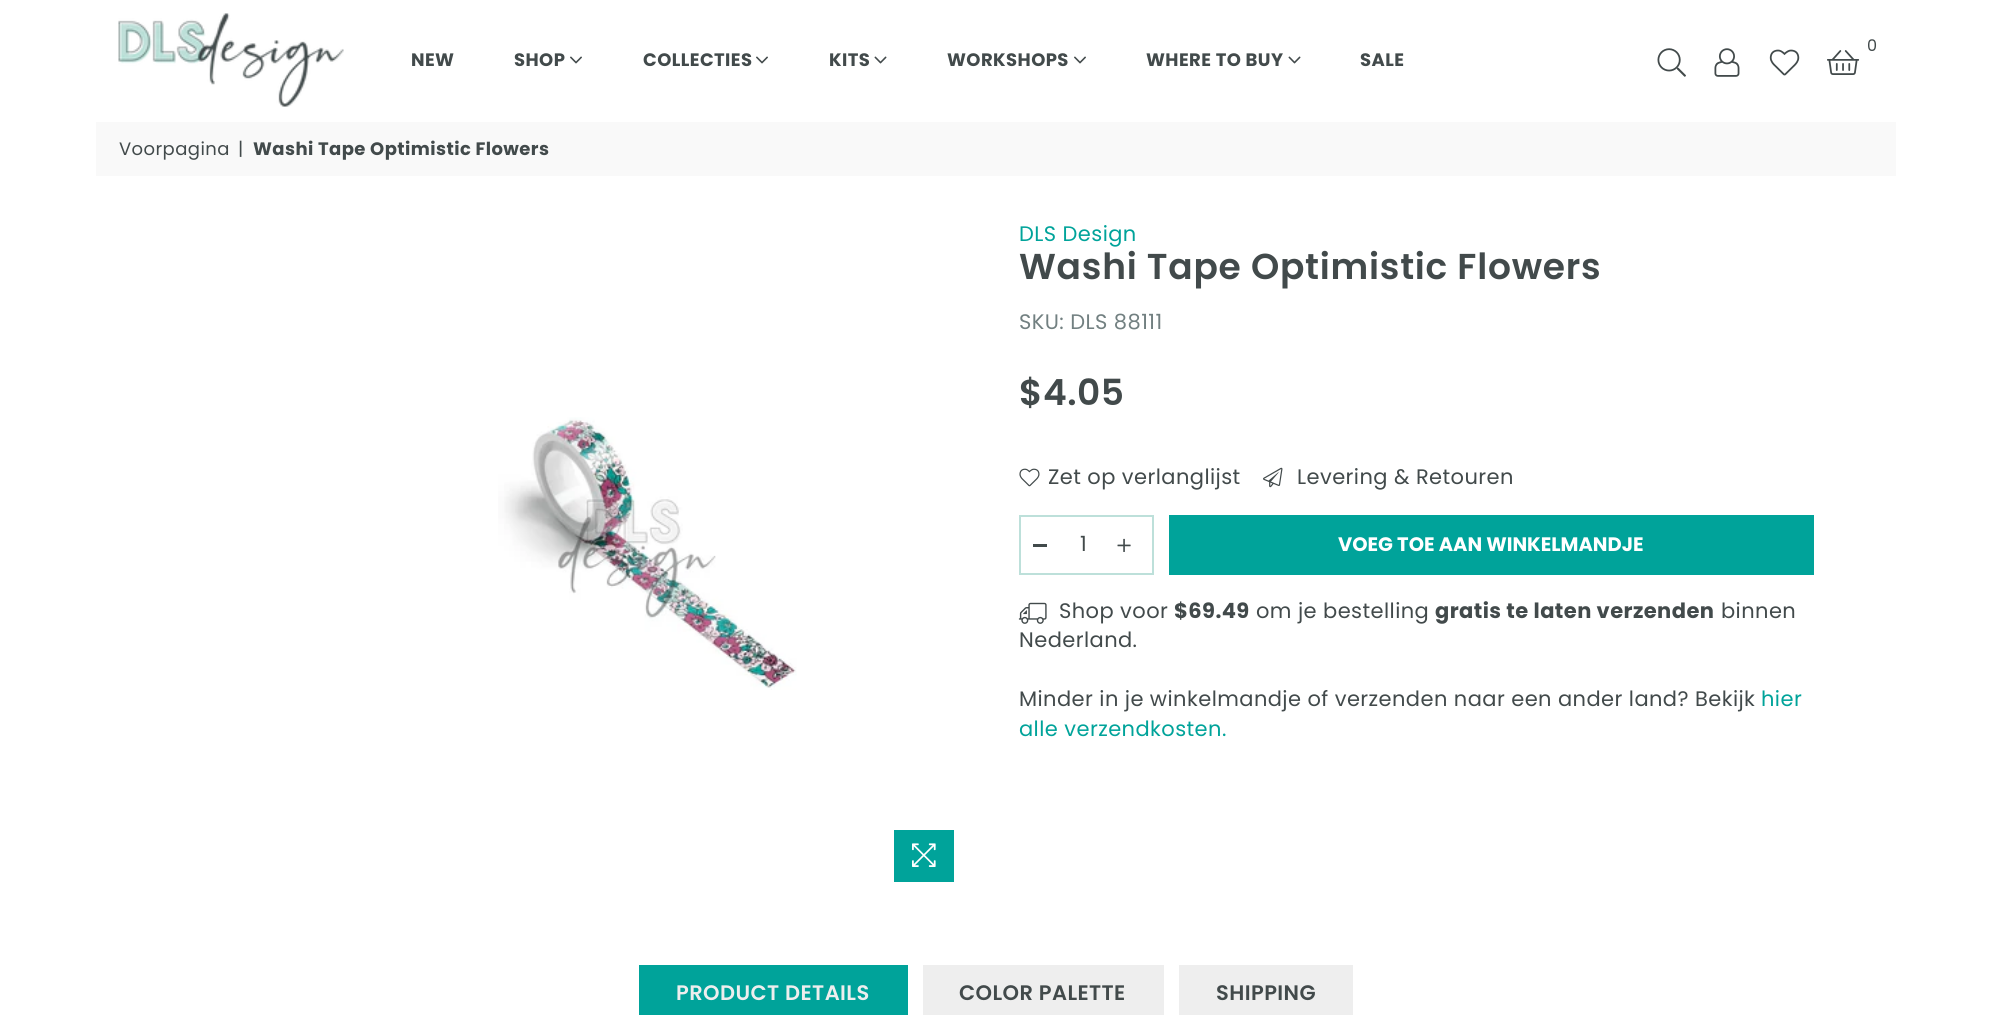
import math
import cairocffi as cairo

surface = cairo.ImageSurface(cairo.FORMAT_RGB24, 1992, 1015)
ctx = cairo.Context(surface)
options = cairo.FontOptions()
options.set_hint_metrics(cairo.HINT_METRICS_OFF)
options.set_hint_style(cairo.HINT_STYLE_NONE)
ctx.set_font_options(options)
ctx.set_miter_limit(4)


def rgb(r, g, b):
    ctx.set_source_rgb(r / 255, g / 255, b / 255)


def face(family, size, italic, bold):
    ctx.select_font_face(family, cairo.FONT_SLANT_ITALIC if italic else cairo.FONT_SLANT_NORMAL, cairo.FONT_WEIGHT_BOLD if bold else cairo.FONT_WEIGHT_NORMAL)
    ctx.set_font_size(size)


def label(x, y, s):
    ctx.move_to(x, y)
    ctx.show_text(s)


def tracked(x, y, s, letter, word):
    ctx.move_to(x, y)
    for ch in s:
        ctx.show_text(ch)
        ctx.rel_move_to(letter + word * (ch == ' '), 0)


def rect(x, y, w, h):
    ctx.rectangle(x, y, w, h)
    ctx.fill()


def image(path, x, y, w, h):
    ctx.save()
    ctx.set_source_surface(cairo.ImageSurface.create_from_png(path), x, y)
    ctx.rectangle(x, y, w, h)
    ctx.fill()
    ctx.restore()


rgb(255, 255, 255)
ctx.paint()
image('image0.png', 118, 13, 226, 94)
face('Poppins', 16, 0, 0)
rgb(66, 74, 75)
tracked(1867, 51, '0', 0.42, 0)
image('image1.png', 1827, 50, 33, 25)
image('image2.png', 1657, 48, 29, 29)
image('image3.png', 1714, 48, 26, 29)
image('image4.png', 1769, 49, 31, 27)
face('Poppins', 18, 0, 1)
tracked(411, 66, 'NEW', 0.42, 0)
tracked(514, 66, 'SHOP', 0.42, 0)
image('image5.png', 570, 56, 12, 8)
tracked(643, 66, 'COLLECTIES', 0.42, 0)
image('image5.png', 756, 56, 12, 8)
tracked(829, 66, 'KITS', 0.42, 0)
image('image6.png', 874, 56, 13, 8)
tracked(947, 66, 'WORKSHOPS', 0.42, 0)
image('image5.png', 1074, 56, 12, 8)
tracked(1146, 66, 'WHERE TO BUY', 0.42, 0)
image('image6.png', 1288, 56, 13, 8)
tracked(1360, 66, 'SALE', 0.42, 0)
rgb(249, 249, 249)
rect(96, 122, 1800, 54)
face('Poppins', 18, 0, 0)
rgb(66, 74, 75)
tracked(119, 155, 'Voorpagina', 0.42, 0)
tracked(238, 155, '|', 0.42, 0)
face('Poppins', 18, 0, 1)
tracked(253, 155, 'Washi Tape Optimistic Flowers', 0.42, 0)
image('image7.png', 498, 417, 299, 273)
rgb(0, 163, 154)
rect(894, 830, 60, 52)
image('image8.png', 912, 843, 24, 24)
face('Poppins', 21, 0, 0)
tracked(1019, 241, 'DLS Design', 0.42, 0)
face('Poppins SemiBold', 36, 0, 0)
rgb(66, 74, 75)
tracked(1019, 279, 'Washi Tape Optimistic Flowers', 0.75, 0)
face('Poppins', 21, 0, 0)
rgb(114, 128, 129)
tracked(1019, 329, 'SKU: DLS 88111', 0.42, 0)
face('Poppins SemiBold', 36, 0, 0)
rgb(66, 74, 75)
tracked(1019, 405, '$4.05', 0.42, 0)
image('image9.png', 1019, 468, 21, 19)
face('Poppins', 21, 0, 0)
tracked(1048, 484, 'Zet op verlanglijst', 0.42, 0)
image('image10.png', 1263, 467, 20, 21)
tracked(1297, 484, 'Levering & Retouren', 0.42, 0)
ctx.rectangle(1020, 516, 133, 58)
rgb(189, 224, 218)
ctx.stroke()
rgb(66, 74, 75)
rect(1033, 544, 14, 3)
label(1080, 551, '1')
image('image11.png', 1117, 538, 14, 14)
rgb(0, 163, 154)
rect(1169, 515, 645, 60)
face('Poppins', 19.5, 0, 1)
rgb(255, 255, 255)
label(1338, 551, 'VOEG TOE AAN WINKELMANDJE')
image('image12.png', 1018, 602, 29, 22)
face('Poppins', 21, 0, 0)
rgb(66, 74, 75)
tracked(1059, 618, 'Shop voor', 0.42, 0)
face('Poppins', 21, 0, 1)
tracked(1174, 618, '$69.49', 0.42, 0)
face('Poppins', 21, 0, 0)
tracked(1256, 618, 'om je bestelling', 0.42, 0)
face('Poppins', 21, 0, 1)
tracked(1435, 618, 'gratis te laten verzenden', 0.42, 0)
face('Poppins', 21, 0, 0)
tracked(1721, 618, 'binnen', 0.42, 0)
tracked(1019, 647, 'Nederland.', 0.42, 0)
tracked(1019, 706, 'Minder in je winkelmandje of verzenden naar een ander land? Bekijk', 0.42, 0)
rgb(0, 163, 154)
tracked(1761, 706, 'hier', 0.42, 0)
tracked(1019, 736, 'alle verzendkosten.', 0.42, 0)
rect(639, 965, 269, 50)
face('Poppins SemiBold', 21, 0, 0)
rgb(238, 238, 238)
tracked(676, 1000, 'PRODUCT DETAILS', 0.42, 0)
rect(923, 965, 241, 50)
rgb(66, 74, 75)
tracked(959, 1000, 'COLOR PALETTE', 0.42, 0)
rgb(238, 238, 238)
rect(1179, 965, 174, 50)
rgb(66, 74, 75)
tracked(1216, 1000, 'SHIPPING', 0.42, 0)
surface.write_to_png('render.png')
